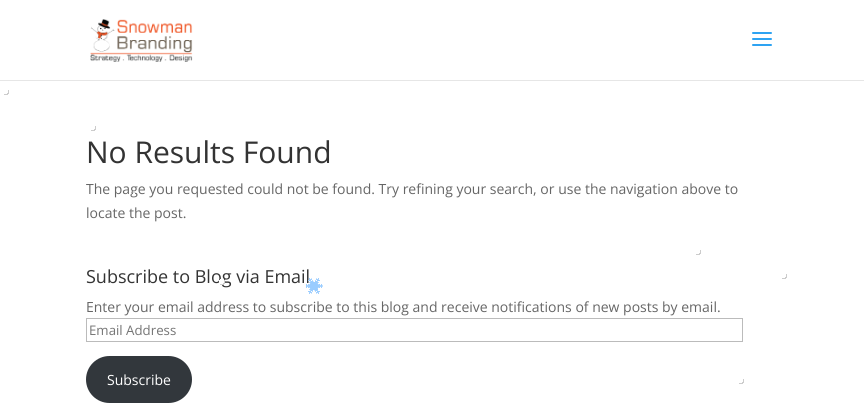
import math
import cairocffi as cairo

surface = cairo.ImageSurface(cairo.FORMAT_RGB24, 864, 403)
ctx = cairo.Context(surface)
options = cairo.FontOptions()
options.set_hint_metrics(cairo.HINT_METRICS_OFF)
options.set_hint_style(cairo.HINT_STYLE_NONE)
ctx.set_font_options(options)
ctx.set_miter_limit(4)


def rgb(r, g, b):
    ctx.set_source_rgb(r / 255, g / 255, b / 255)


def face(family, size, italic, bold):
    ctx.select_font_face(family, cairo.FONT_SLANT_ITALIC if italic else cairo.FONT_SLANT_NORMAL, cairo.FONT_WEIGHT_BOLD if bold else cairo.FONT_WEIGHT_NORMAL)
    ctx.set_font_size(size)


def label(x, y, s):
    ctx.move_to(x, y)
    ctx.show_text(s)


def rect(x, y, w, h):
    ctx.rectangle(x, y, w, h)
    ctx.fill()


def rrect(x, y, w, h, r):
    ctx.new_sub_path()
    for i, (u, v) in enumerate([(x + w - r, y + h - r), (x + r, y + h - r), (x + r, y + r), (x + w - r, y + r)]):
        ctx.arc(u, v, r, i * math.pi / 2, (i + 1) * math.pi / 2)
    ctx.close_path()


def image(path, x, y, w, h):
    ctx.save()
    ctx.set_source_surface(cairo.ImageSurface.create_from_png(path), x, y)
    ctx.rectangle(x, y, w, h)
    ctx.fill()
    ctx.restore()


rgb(255, 255, 255)
ctx.paint()
image('image0.png', 4, 90, 5, 5)
image('image0.png', 91, 126, 5, 5)
rgb(230, 230, 230)
rect(0, 80, 864, 1)
image('image1.png', 90, 19, 103, 43)
image('image2.png', 752, 32, 20, 14)
face('Open Sans', 30, 0, 0)
rgb(51, 51, 51)
label(86, 163, 'No Results Found')
face('Open Sans', 14, 0, 0)
rgb(102, 102, 102)
label(86, 194, 'The page you requested could not be found. Try refining your search, or use the navigation above to')
label(86, 218, 'locate the post.')
face('Open Sans', 18, 0, 0)
rgb(51, 51, 51)
label(86, 283, 'Subscribe to Blog via Email')
face('Open Sans', 14, 0, 0)
rgb(102, 102, 102)
label(86, 312, 'Enter your email address to subscribe to this blog and receive notifications of new posts by email.')
ctx.rectangle(86.5, 318.5, 656, 23)
rgb(187, 187, 187)
ctx.set_line_width(1)
ctx.stroke()
face('Open Sans', 13.25, 0, 0)
rgb(117, 117, 117)
label(89, 335, 'Email Address')
rgb(50, 55, 60)
rrect(86, 356, 106, 47, 23.5)
ctx.fill()
face('Open Sans', 14, 0, 0)
rgb(255, 255, 255)
label(107, 385, 'Subscribe')
rect(133, 193, 2, 1)
image('image0.png', 696, 250, 5, 5)
image('image0.png', 782, 274, 5, 5)
image('image3.png', 219, 279, 6, 6)
image('image4.png', 306, 278, 17, 16)
image('image0.png', 739, 379, 5, 5)
surface.write_to_png('render.png')
